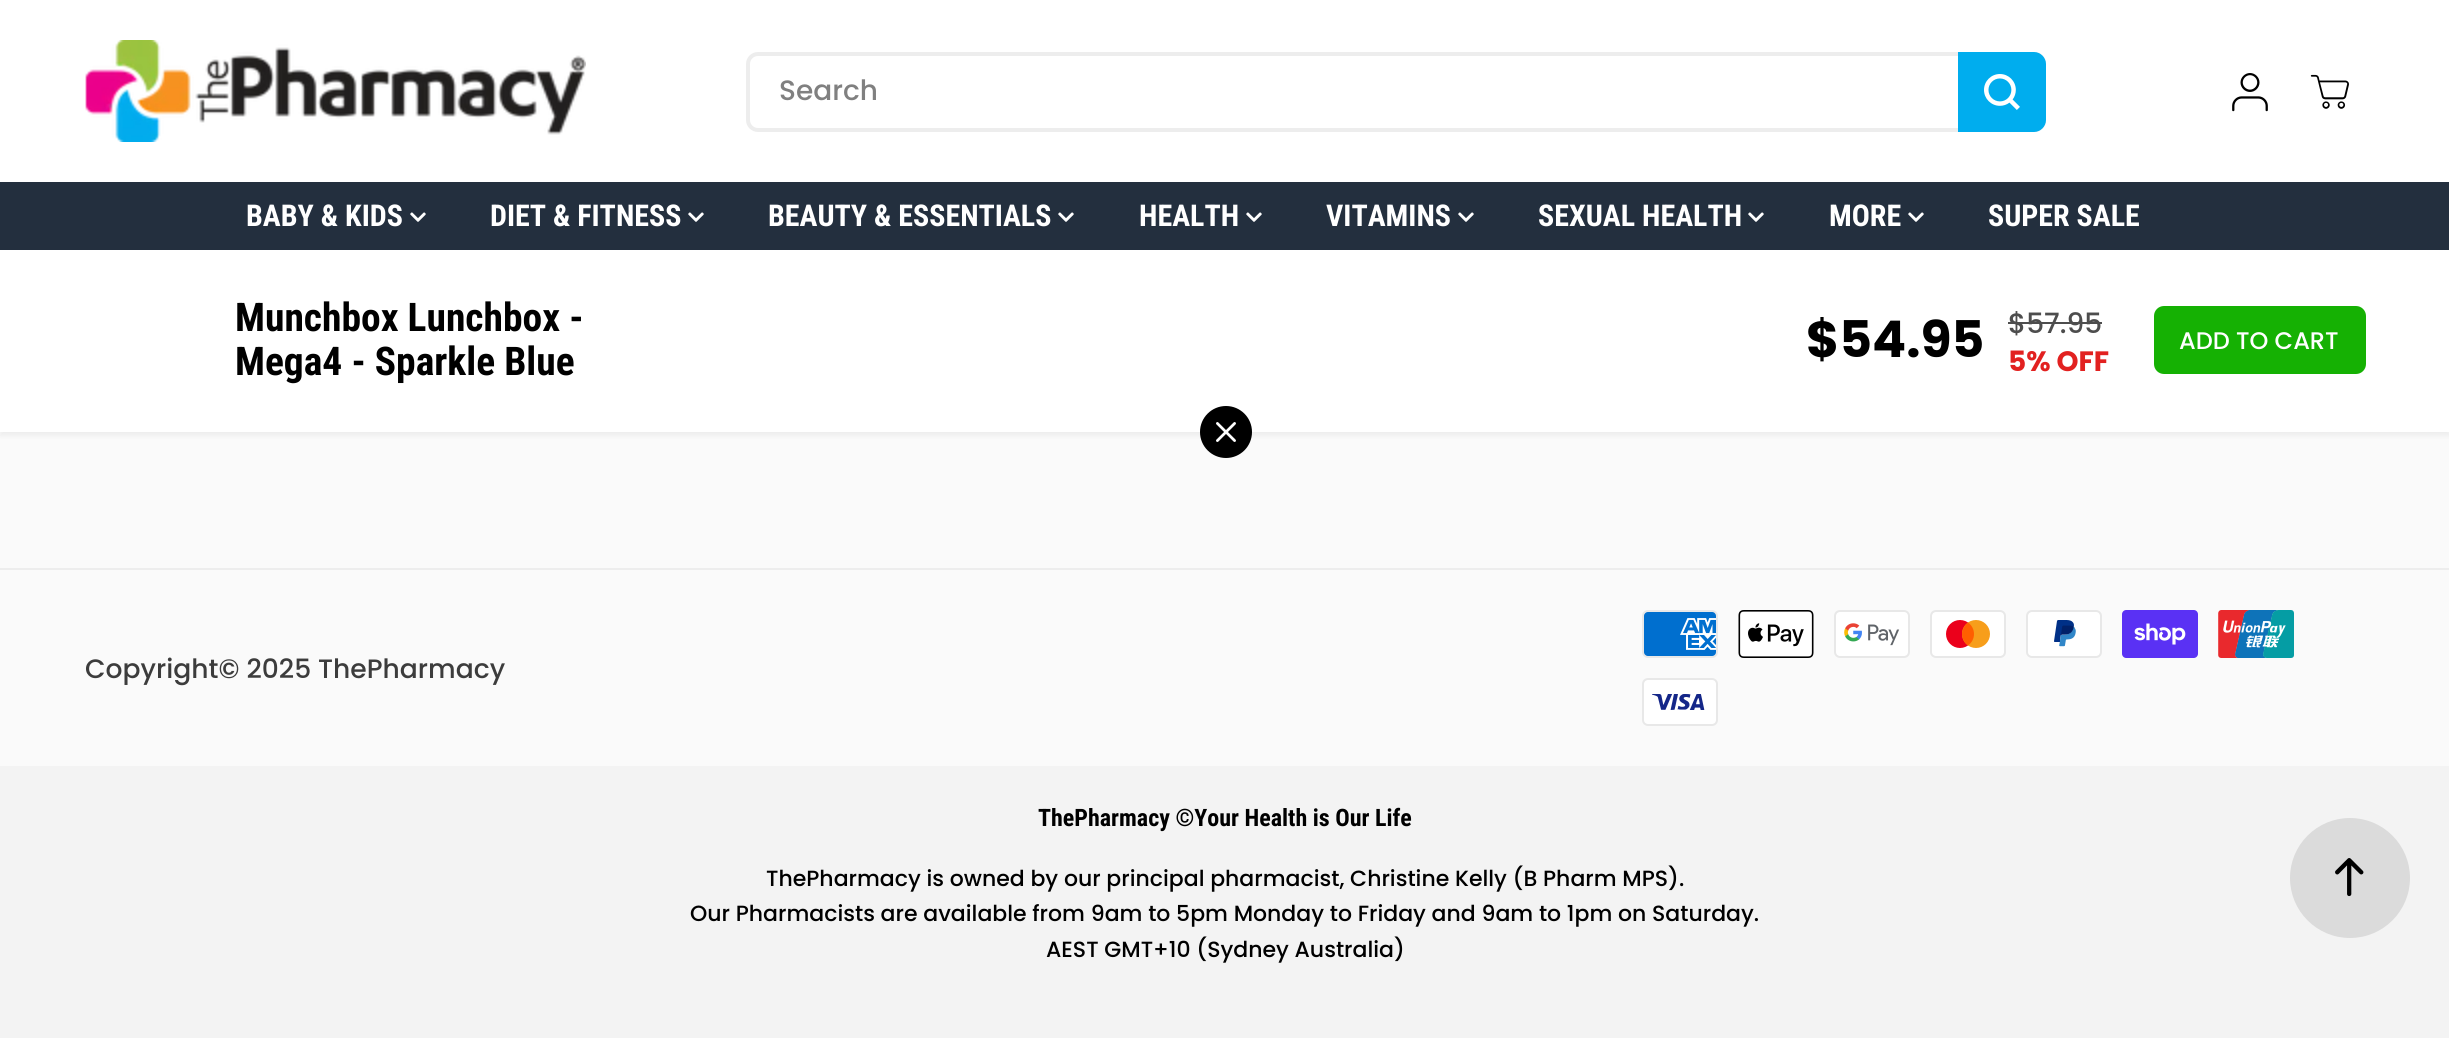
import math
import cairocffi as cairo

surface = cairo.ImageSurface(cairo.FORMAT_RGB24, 2449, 1038)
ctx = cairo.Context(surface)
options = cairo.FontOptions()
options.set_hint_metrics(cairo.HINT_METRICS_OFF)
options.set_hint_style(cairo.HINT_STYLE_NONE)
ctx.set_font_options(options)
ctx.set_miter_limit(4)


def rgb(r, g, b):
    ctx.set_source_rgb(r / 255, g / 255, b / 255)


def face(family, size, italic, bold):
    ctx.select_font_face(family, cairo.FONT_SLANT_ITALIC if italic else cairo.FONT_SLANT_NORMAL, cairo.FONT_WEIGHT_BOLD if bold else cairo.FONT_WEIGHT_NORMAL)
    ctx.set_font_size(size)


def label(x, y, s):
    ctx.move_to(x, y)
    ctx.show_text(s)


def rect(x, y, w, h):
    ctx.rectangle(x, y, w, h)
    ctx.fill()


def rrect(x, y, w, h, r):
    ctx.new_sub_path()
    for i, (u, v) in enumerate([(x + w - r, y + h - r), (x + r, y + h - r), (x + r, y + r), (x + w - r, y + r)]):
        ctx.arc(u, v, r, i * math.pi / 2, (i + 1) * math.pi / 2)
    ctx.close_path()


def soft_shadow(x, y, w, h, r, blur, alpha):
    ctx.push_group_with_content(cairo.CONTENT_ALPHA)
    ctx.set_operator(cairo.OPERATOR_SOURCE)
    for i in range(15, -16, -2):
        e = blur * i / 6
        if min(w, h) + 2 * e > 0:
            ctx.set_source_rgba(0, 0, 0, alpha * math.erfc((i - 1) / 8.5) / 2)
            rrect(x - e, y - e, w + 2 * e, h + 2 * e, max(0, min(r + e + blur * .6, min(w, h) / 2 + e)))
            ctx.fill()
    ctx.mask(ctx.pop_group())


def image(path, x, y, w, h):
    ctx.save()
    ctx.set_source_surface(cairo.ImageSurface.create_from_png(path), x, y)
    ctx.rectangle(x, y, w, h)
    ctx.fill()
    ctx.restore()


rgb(243, 243, 243)
ctx.paint()
rgb(255, 255, 255)
rect(0, 0, 2449, 182)
image('image0.png', 85, 40, 501, 102)
rrect(748, 54, 1296, 76, 10)
rgb(237, 237, 237)
ctx.set_line_width(4)
ctx.stroke()
face('Poppins Medium', 28, 0, 0)
rgb(128, 128, 128)
label(779, 100, 'Search')
rgb(0, 173, 238)
ctx.new_path()
ctx.move_to(1958, 52)
ctx.line_to(2034, 52)
ctx.curve_to(2040.5, 52, 2046, 57.5, 2046, 64)
ctx.line_to(2046, 120)
ctx.curve_to(2046, 126.5, 2040.5, 132, 2034, 132)
ctx.line_to(1958, 132)
ctx.close_path()
ctx.fill()
image('image1.png', 1984, 74, 36, 36)
image('image2.png', 2232, 73, 36, 39)
image('image3.png', 2310, 74, 39, 35)
rgb(250, 250, 250)
rect(0, 432, 2449, 334)
rgb(0, 0, 0)
soft_shadow(0, 254, 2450, 182, 0, 2, 0.05)
rgb(35, 47, 62)
rect(0, 182, 2449, 68)
face('Roboto Condensed', 30, 0, 1)
rgb(255, 255, 255)
label(246, 226, 'BABY & KIDS')
image('image4.png', 410, 212, 16, 10)
label(490, 226, 'DIET & FITNESS')
image('image4.png', 688, 212, 16, 10)
label(768, 226, 'BEAUTY & ESSENTIALS')
image('image4.png', 1058, 212, 16, 10)
label(1139, 226, 'HEALTH')
image('image4.png', 1246, 212, 16, 10)
label(1326, 226, 'VITAMINS')
image('image4.png', 1458, 212, 16, 10)
label(1538, 226, 'SEXUAL HEALTH')
image('image4.png', 1748, 212, 16, 10)
label(1829, 226, 'MORE')
image('image4.png', 1908, 212, 16, 10)
label(1988, 226, 'SUPER SALE')
rect(0, 250, 2449, 182)
face('Roboto Condensed', 39.5, 0, 1)
rgb(0, 0, 0)
label(235, 331, 'Munchbox Lunchbox -')
label(235, 375, 'Mega4 - Sparkle Blue')
face('Poppins', 50.5, 0, 1)
label(1806, 357, '$54.95')
face('Poppins Medium', 28, 0, 0)
rgb(77, 77, 77)
label(2008, 333, '$57.95')
rect(2008, 322, 94, 2)
face('Poppins', 28, 0, 1)
rgb(226, 33, 32)
label(2008, 371, '5% OFF')
rgb(21, 177, 3)
rrect(2155, 307, 210, 66, 9)
ctx.fill_preserve()
ctx.set_line_width(2)
ctx.stroke()
face('Poppins Medium', 24, 0, 0)
rgb(255, 255, 255)
label(2179, 349, 'ADD TO CART')
rgb(0, 0, 0)
ctx.new_path()
ctx.arc(1226, 432, 26, 0, 2 * math.pi)
ctx.fill()
image('image5.png', 1216, 422, 20, 20)
rgb(237, 237, 237)
rect(0, 568, 2449, 2)
face('Poppins Medium', 26.6, 0, 0)
rgb(60, 60, 60)
label(85, 678, 'Copyright© 2025 ThePharmacy')
image('image6.png', 1642, 610, 76, 48)
image('image7.png', 1738, 610, 76, 48)
image('image8.png', 1834, 610, 76, 48)
image('image9.png', 1930, 610, 76, 48)
image('image10.png', 2026, 610, 76, 48)
image('image11.png', 2122, 610, 76, 48)
image('image12.png', 2218, 610, 76, 48)
image('image13.png', 1642, 678, 76, 48)
face('Roboto Condensed', 24, 0, 1)
rgb(0, 0, 0)
label(1038, 826, 'ThePharmacy ©Your Health is Our Life')
face('Poppins Medium', 22, 0, 0)
label(766, 886, 'ThePharmacy is owned by our principal pharmacist, Christine Kelly (B Pharm MPS).')
label(690, 921, 'Our Pharmacists are available from 9am to 5pm Monday to Friday and 9am to 1pm on Saturday.')
label(1046, 957, 'AEST GMT+10 (Sydney Australia)')
rgb(219, 219, 219)
ctx.new_path()
ctx.arc(2350, 878, 60, 0, 2 * math.pi)
ctx.fill()
image('image14.png', 2335, 858, 29, 39)
surface.write_to_png('render.png')
